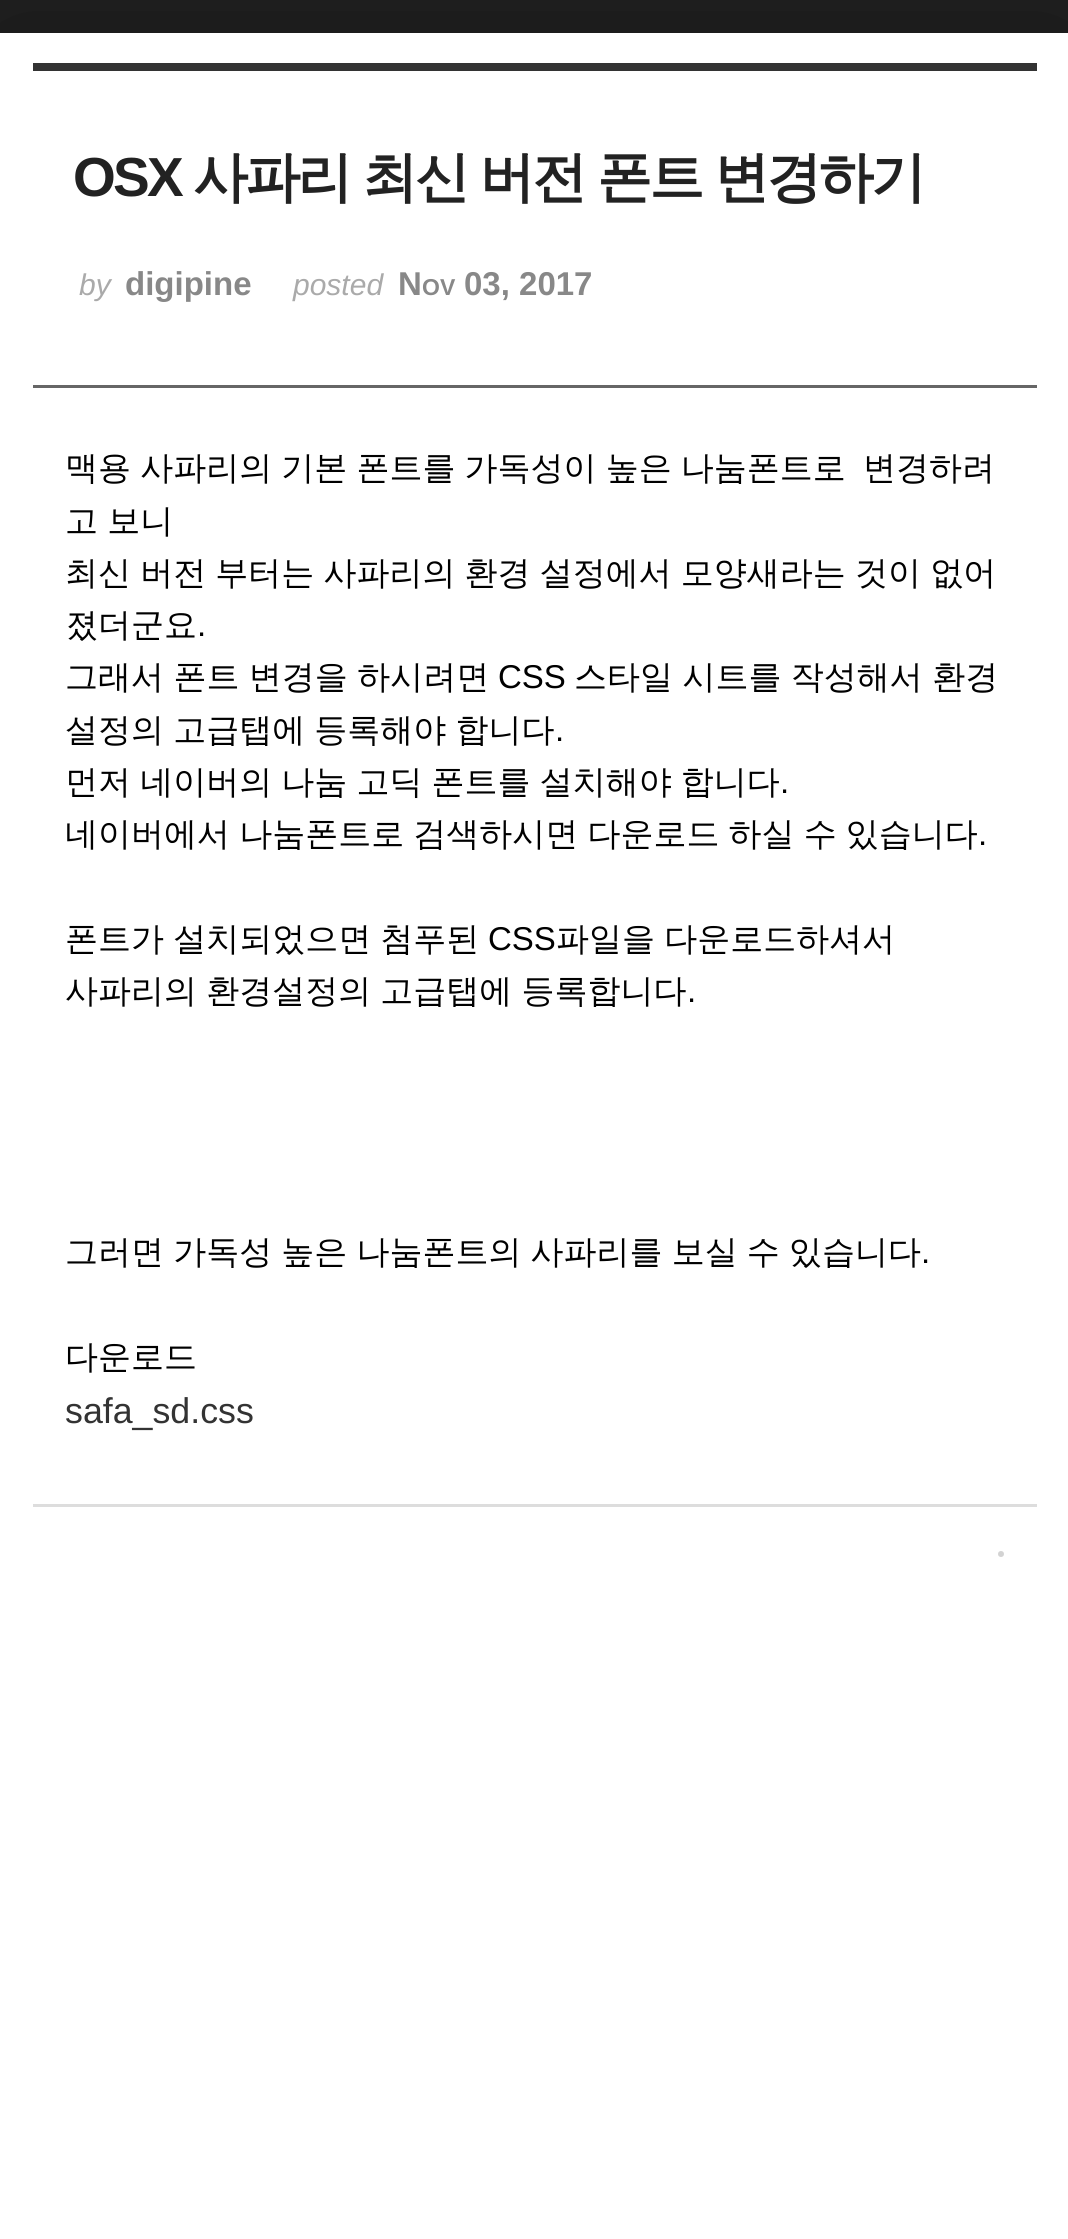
import math
import cairocffi as cairo

surface = cairo.ImageSurface(cairo.FORMAT_RGB24, 1068, 2239)
ctx = cairo.Context(surface)
options = cairo.FontOptions()
options.set_hint_metrics(cairo.HINT_METRICS_OFF)
options.set_hint_style(cairo.HINT_STYLE_NONE)
ctx.set_font_options(options)
ctx.set_miter_limit(4)


def rgb(r, g, b):
    ctx.set_source_rgb(r / 255, g / 255, b / 255)


def face(family, size, italic, bold):
    ctx.select_font_face(family, cairo.FONT_SLANT_ITALIC if italic else cairo.FONT_SLANT_NORMAL, cairo.FONT_WEIGHT_BOLD if bold else cairo.FONT_WEIGHT_NORMAL)
    ctx.set_font_size(size)


def label(x, y, s):
    ctx.move_to(x, y)
    ctx.show_text(s)


def tracked(x, y, s, letter, word):
    ctx.move_to(x, y)
    for ch in s:
        ctx.show_text(ch)
        ctx.rel_move_to(letter + word * (ch == ' '), 0)


def rect(x, y, w, h):
    ctx.rectangle(x, y, w, h)
    ctx.fill()


def rrect(x, y, w, h, r):
    ctx.new_sub_path()
    for i, (u, v) in enumerate([(x + w - r, y + h - r), (x + r, y + h - r), (x + r, y + r), (x + w - r, y + r)]):
        ctx.arc(u, v, r, i * math.pi / 2, (i + 1) * math.pi / 2)
    ctx.close_path()


def soft_shadow(x, y, w, h, r, blur, alpha):
    ctx.push_group_with_content(cairo.CONTENT_ALPHA)
    ctx.set_operator(cairo.OPERATOR_SOURCE)
    for i in range(15, -16, -2):
        e = blur * i / 6
        if min(w, h) + 2 * e > 0:
            ctx.set_source_rgba(0, 0, 0, alpha * math.erfc((i - 1) / 8.5) / 2)
            rrect(x - e, y - e, w + 2 * e, h + 2 * e, max(0, min(r + e + blur * .6, min(w, h) / 2 + e)))
            ctx.fill()
    ctx.mask(ctx.pop_group())


rgb(34, 34, 34)
ctx.paint()
rgb(0, 0, 0)
soft_shadow(0, 44, 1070, 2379, 0, 66, 0.5)
rgb(255, 255, 255)
rect(0, 33, 1068, 2206)
rgb(51, 51, 51)
rect(33, 63, 1004, 8)
rgb(102, 102, 102)
rect(33, 385, 1004, 3)
face('Liberation Sans', 55, 0, 1)
rgb(34, 34, 34)
tracked(73, 196, 'OSX', -2.75, 0)
face('WenQuanYi Zen Hei', 55, 0, 1)
tracked(193, 196, '사파리 최신 버전 폰트 변경하기', -2.75, -1)
face('Liberation Sans', 30, 1, 0)
rgb(170, 170, 170)
label(79, 295, 'by')
face('Liberation Sans', 33, 0, 1)
rgb(136, 136, 136)
label(125, 295, 'digipine')
face('Liberation Sans', 30, 1, 0)
rgb(170, 170, 170)
label(293, 295, 'posted')
face('Liberation Sans', 33, 0, 1)
rgb(136, 136, 136)
label(398, 295, 'N')
face('Liberation Sans', 23, 0, 1)
label(422, 295, 'OV')
face('Liberation Sans', 33, 0, 1)
label(464, 295, '03, 2017')
face('WenQuanYi Zen Hei Medium', 33, 0, 0)
rgb(0, 0, 0)
tracked(65, 479, '맥용 사파리의 기본 폰트를 가독성이 높은 나눔폰트로', 0, -0.75)
label(863, 479, '변경하려')
tracked(65, 532, '고 보니', 0, -0.75)
tracked(65, 584, '최신 버전 부터는 사파리의 환경 설정에서 모양새라는 것이 없어', 0, -0.75)
label(65, 636, '졌더군요')
face('Liberation Sans', 33, 0, 0)
label(197, 636, '.')
face('WenQuanYi Zen Hei Medium', 33, 0, 0)
tracked(65, 688, '그래서 폰트 변경을 하시려면', 0, -0.5)
face('Liberation Sans', 33, 0, 0)
label(498, 688, 'CSS')
face('WenQuanYi Zen Hei Medium', 33, 0, 0)
tracked(574, 688, '스타일 시트를 작성해서 환경', 0, -0.5)
tracked(65, 741, '설정의 고급탭에 등록해야 합니다', 0, -0.75)
face('Liberation Sans', 33, 0, 0)
label(555, 741, '.')
face('WenQuanYi Zen Hei Medium', 33, 0, 0)
tracked(65, 793, '먼저 네이버의 나눔 고딕 폰트를 설치해야 합니다', 0, -0.75)
face('Liberation Sans', 33, 0, 0)
label(780, 793, '.')
face('WenQuanYi Zen Hei Medium', 33, 0, 0)
tracked(65, 845, '네이버에서 나눔폰트로 검색하시면 다운로드 하실 수 있습니다', 0, -0.75)
face('Liberation Sans', 33, 0, 0)
label(978, 845, '.')
face('WenQuanYi Zen Hei Medium', 33, 0, 0)
tracked(65, 950, '폰트가 설치되었으면 첨푸된', 0, -0.75)
face('Liberation Sans', 33, 0, 0)
label(488, 950, 'CSS')
face('WenQuanYi Zen Hei Medium', 33, 0, 0)
tracked(556, 950, '파일을 다운로드하셔서', 0, -0.75)
tracked(65, 1002, '사파리의 환경설정의 고급탭에 등록합니다', 0, -0.75)
face('Liberation Sans', 33, 0, 0)
label(687, 1002, '.')
face('WenQuanYi Zen Hei Medium', 33, 0, 0)
tracked(65, 1263, '그러면 가독성 높은 나눔폰트의 사파리를 보실 수 있습니다', 0, -0.75)
face('Liberation Sans', 33, 0, 0)
label(921, 1263, '.')
face('WenQuanYi Zen Hei Medium', 33, 0, 0)
label(65, 1368, '다운로드')
face('Liberation Sans', 35.75, 0, 0)
rgb(51, 51, 51)
label(65, 1423, 'safa_sd.css')
rgb(221, 221, 221)
rect(33, 1504, 1004, 3)
rgb(211, 211, 211)
ctx.new_path()
ctx.arc(1001, 1554, 3, 0, 2 * math.pi)
ctx.fill()
surface.write_to_png('render.png')
